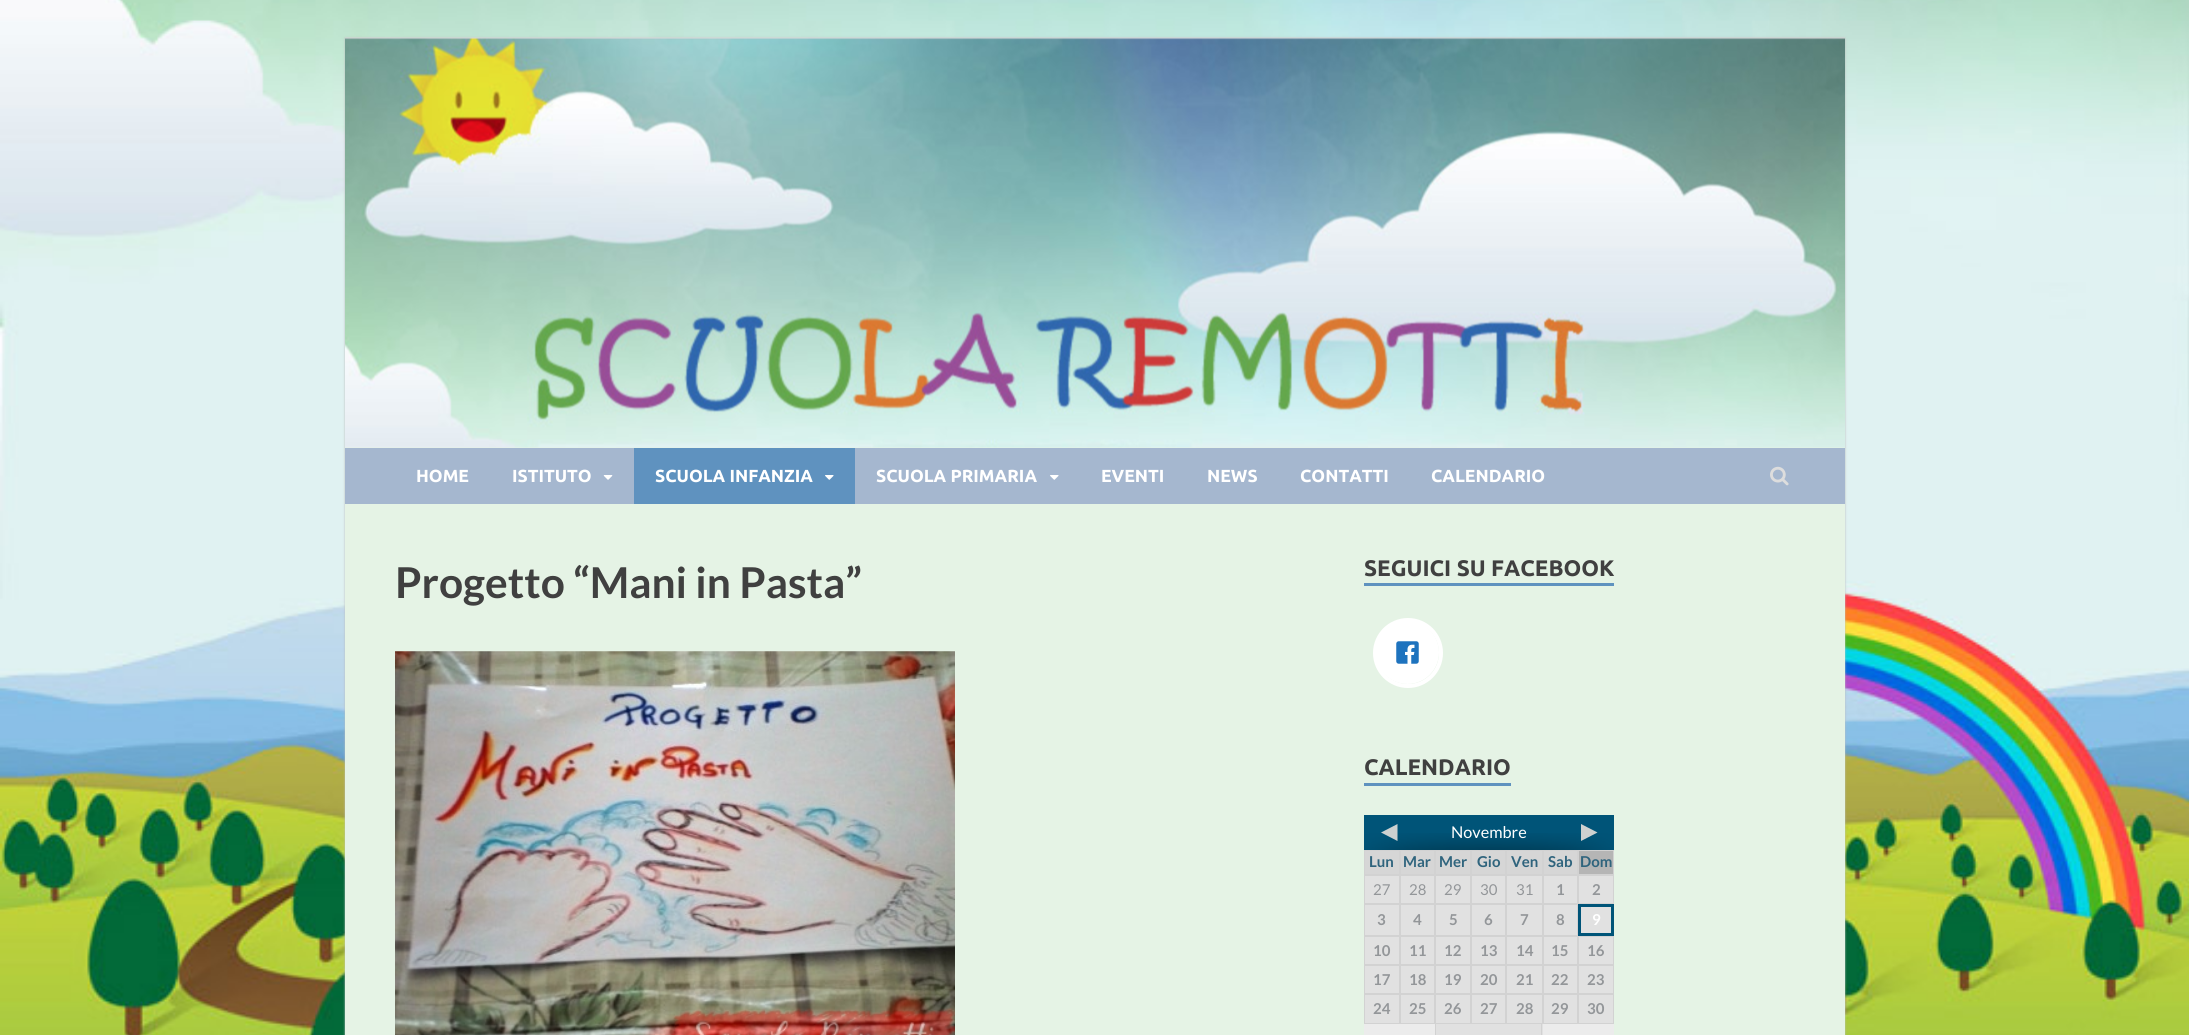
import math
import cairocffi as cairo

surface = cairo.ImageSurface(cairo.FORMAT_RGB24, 2189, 1035)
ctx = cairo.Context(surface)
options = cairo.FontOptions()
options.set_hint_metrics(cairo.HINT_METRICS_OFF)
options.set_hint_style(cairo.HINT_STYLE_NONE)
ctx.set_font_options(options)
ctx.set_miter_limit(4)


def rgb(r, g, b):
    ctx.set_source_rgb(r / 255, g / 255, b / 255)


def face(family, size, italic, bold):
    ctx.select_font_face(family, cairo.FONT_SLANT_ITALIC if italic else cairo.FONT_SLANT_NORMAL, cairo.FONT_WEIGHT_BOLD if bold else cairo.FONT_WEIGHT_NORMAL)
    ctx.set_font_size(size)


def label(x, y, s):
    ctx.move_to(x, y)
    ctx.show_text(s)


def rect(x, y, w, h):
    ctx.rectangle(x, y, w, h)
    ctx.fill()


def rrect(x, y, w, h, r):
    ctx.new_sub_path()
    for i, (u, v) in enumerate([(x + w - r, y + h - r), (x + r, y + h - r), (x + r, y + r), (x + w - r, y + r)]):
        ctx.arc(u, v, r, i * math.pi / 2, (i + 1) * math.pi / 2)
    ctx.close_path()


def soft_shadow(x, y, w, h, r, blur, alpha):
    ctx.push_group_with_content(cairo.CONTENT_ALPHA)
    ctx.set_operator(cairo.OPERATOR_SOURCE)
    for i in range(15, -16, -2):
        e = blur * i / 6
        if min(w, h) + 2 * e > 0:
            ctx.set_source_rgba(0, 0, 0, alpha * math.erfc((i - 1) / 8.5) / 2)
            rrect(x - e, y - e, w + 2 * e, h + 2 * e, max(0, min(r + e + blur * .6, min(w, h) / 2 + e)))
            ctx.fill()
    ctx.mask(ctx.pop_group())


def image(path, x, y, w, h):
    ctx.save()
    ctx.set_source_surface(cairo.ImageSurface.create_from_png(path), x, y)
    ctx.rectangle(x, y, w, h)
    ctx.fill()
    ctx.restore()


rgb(255, 255, 255)
ctx.paint()
image('image0.png', 0, 0, 2189, 1035)
rgb(187, 187, 187)
soft_shadow(345, 38, 1500, 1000, 0, 1, 1)
rgb(229, 243, 229)
rect(345, 447, 1500, 588)
image('image1.png', 345, 37, 1500, 411)
rgb(165, 183, 207)
rect(345, 448, 1500, 56)
face('Ubuntu', 17.5, 0, 1)
rgb(255, 255, 255)
label(416, 482, 'HOME')
label(512, 482, 'ISTITUTO')
image('image2.png', 603, 475, 10, 5)
rgb(95, 146, 191)
rect(634, 448, 221, 56)
rgb(255, 255, 255)
label(655, 482, 'SCUOLA INFANZIA')
image('image3.png', 825, 475, 9, 5)
label(876, 482, 'SCUOLA PRIMARIA')
image('image4.png', 1050, 475, 9, 5)
label(1101, 482, 'EVENTI')
label(1207, 482, 'NEWS')
label(1300, 482, 'CONTATTI')
label(1431, 482, 'CALENDARIO')
image('image5.png', 1770, 466, 19, 20)
face('Lato', 42.5, 0, 1)
rgb(64, 64, 64)
label(395, 598, 'Progetto “Mani in Pasta”')
image('image6.png', 395, 651, 560, 384)
rgb(95, 146, 191)
rect(1364, 583, 250, 3)
face('Ubuntu', 22.5, 0, 1)
rgb(64, 64, 64)
label(1364, 576, 'SEGUICI SU FACEBOOK')
rgb(255, 255, 255)
ctx.new_path()
ctx.arc(1407.5, 652.5, 31.5, 0, 2 * math.pi)
ctx.fill()
image('image7.png', 1396, 641, 23, 23)
ctx.arc(1408, 653, 33, 0, 2 * math.pi)
ctx.set_line_width(4)
ctx.stroke()
rgb(95, 146, 191)
rect(1364, 783, 147, 3)
rgb(64, 64, 64)
label(1364, 775, 'CALENDARIO')
rgb(225, 225, 225)
rect(1365, 876, 248, 159)
rgb(0, 84, 120)
rect(1364, 815, 250, 35)
image('image8.png', 1364, 833, 249, 17)
rgb(206, 209, 208)
ctx.new_path()
ctx.move_to(1397.5, 824)
ctx.line_to(1397.5, 841)
ctx.line_to(1381, 832.5)
ctx.close_path()
ctx.fill()
face('Lato', 16.25, 0, 0)
rgb(255, 255, 255)
label(1451, 838, 'Novembre')
rgb(206, 209, 208)
ctx.new_path()
ctx.move_to(1581, 841)
ctx.line_to(1581, 824)
ctx.line_to(1597.5, 832.5)
ctx.close_path()
ctx.fill()
rgb(214, 214, 214)
rect(1365, 851, 212, 23)
ctx.rectangle(1364.5, 850.5, 35, 24)
rgb(210, 210, 210)
ctx.set_line_width(1)
ctx.stroke()
face('Lato', 15, 0, 1)
rgb(47, 100, 125)
label(1369, 867, 'Lun')
ctx.rectangle(1400.5, 850.5, 34, 24)
rgb(210, 210, 210)
ctx.stroke()
rgb(47, 100, 125)
label(1403, 867, 'Mar')
ctx.rectangle(1435.5, 850.5, 35, 24)
rgb(210, 210, 210)
ctx.stroke()
rgb(47, 100, 125)
label(1439, 867, 'Mer')
ctx.rectangle(1471.5, 850.5, 34, 24)
rgb(210, 210, 210)
ctx.stroke()
rgb(47, 100, 125)
label(1477, 867, 'Gio')
ctx.rectangle(1506.5, 850.5, 36, 24)
rgb(210, 210, 210)
ctx.stroke()
rgb(47, 100, 125)
label(1511, 867, 'Ven')
ctx.rectangle(1543.5, 850.5, 34, 24)
rgb(210, 210, 210)
ctx.stroke()
rgb(47, 100, 125)
label(1548, 867, 'Sab')
rgb(181, 181, 181)
ctx.rectangle(1578.5, 850.5, 35, 24)
ctx.fill_preserve()
rgb(210, 210, 210)
ctx.stroke()
rgb(47, 100, 125)
label(1580, 867, 'Dom')
ctx.rectangle(1364.5, 875.5, 35, 28)
rgb(210, 210, 210)
ctx.stroke()
face('Lato', 15, 0, 0)
rgb(147, 150, 153)
label(1373, 895, '27')
ctx.rectangle(1400.5, 875.5, 34, 28)
rgb(210, 210, 210)
ctx.stroke()
rgb(147, 150, 153)
label(1409, 895, '28')
ctx.rectangle(1435.5, 875.5, 35, 28)
rgb(210, 210, 210)
ctx.stroke()
rgb(147, 150, 153)
label(1444, 895, '29')
ctx.rectangle(1471.5, 875.5, 34, 28)
rgb(210, 210, 210)
ctx.stroke()
rgb(147, 150, 153)
label(1480, 895, '30')
ctx.rectangle(1506.5, 875.5, 36, 28)
rgb(210, 210, 210)
ctx.stroke()
rgb(147, 150, 153)
label(1516, 895, '31')
ctx.rectangle(1543.5, 875.5, 34, 28)
rgb(210, 210, 210)
ctx.stroke()
face('Lato', 15, 0, 1)
rgb(147, 150, 153)
label(1556, 895, '1')
ctx.rectangle(1578.5, 875.5, 35, 28)
rgb(210, 210, 210)
ctx.stroke()
rgb(147, 150, 153)
label(1592, 895, '2')
ctx.rectangle(1364.5, 904.5, 35, 31)
rgb(210, 210, 210)
ctx.stroke()
rgb(147, 150, 153)
label(1377, 925, '3')
ctx.rectangle(1400.5, 904.5, 34, 31)
rgb(210, 210, 210)
ctx.stroke()
rgb(147, 150, 153)
label(1413, 925, '4')
ctx.rectangle(1435.5, 904.5, 35, 31)
rgb(210, 210, 210)
ctx.stroke()
rgb(147, 150, 153)
label(1449, 925, '5')
ctx.rectangle(1471.5, 904.5, 34, 31)
rgb(210, 210, 210)
ctx.stroke()
rgb(147, 150, 153)
label(1484, 925, '6')
ctx.rectangle(1506.5, 904.5, 36, 31)
rgb(210, 210, 210)
ctx.stroke()
rgb(147, 150, 153)
label(1520, 925, '7')
ctx.rectangle(1543.5, 904.5, 34, 31)
rgb(210, 210, 210)
ctx.stroke()
rgb(147, 150, 153)
label(1556, 925, '8')
ctx.rectangle(1579.5, 905.5, 33, 29)
rgb(0, 84, 120)
ctx.set_line_width(3)
ctx.stroke()
rgb(255, 255, 255)
label(1592, 925, '9')
ctx.rectangle(1364.5, 936.5, 35, 28)
rgb(210, 210, 210)
ctx.set_line_width(1)
ctx.stroke()
rgb(147, 150, 153)
label(1373, 956, '10')
ctx.rectangle(1400.5, 936.5, 34, 28)
rgb(210, 210, 210)
ctx.stroke()
rgb(147, 150, 153)
label(1409, 956, '11')
ctx.rectangle(1435.5, 936.5, 35, 28)
rgb(210, 210, 210)
ctx.stroke()
rgb(147, 150, 153)
label(1444, 956, '12')
ctx.rectangle(1471.5, 936.5, 34, 28)
rgb(210, 210, 210)
ctx.stroke()
rgb(147, 150, 153)
label(1480, 956, '13')
ctx.rectangle(1506.5, 936.5, 36, 28)
rgb(210, 210, 210)
ctx.stroke()
rgb(147, 150, 153)
label(1516, 956, '14')
ctx.rectangle(1543.5, 936.5, 34, 28)
rgb(210, 210, 210)
ctx.stroke()
rgb(147, 150, 153)
label(1551, 956, '15')
ctx.rectangle(1578.5, 936.5, 35, 28)
rgb(210, 210, 210)
ctx.stroke()
rgb(147, 150, 153)
label(1587, 956, '16')
ctx.rectangle(1364.5, 965.5, 35, 28)
rgb(210, 210, 210)
ctx.stroke()
rgb(147, 150, 153)
label(1373, 985, '17')
ctx.rectangle(1400.5, 965.5, 34, 28)
rgb(210, 210, 210)
ctx.stroke()
rgb(147, 150, 153)
label(1409, 985, '18')
ctx.rectangle(1435.5, 965.5, 35, 28)
rgb(210, 210, 210)
ctx.stroke()
rgb(147, 150, 153)
label(1444, 985, '19')
ctx.rectangle(1471.5, 965.5, 34, 28)
rgb(210, 210, 210)
ctx.stroke()
rgb(147, 150, 153)
label(1480, 985, '20')
ctx.rectangle(1506.5, 965.5, 36, 28)
rgb(210, 210, 210)
ctx.stroke()
rgb(147, 150, 153)
label(1516, 985, '21')
ctx.rectangle(1543.5, 965.5, 34, 28)
rgb(210, 210, 210)
ctx.stroke()
rgb(147, 150, 153)
label(1551, 985, '22')
ctx.rectangle(1578.5, 965.5, 35, 28)
rgb(210, 210, 210)
ctx.stroke()
rgb(147, 150, 153)
label(1587, 985, '23')
ctx.rectangle(1364.5, 994.5, 35, 29)
rgb(210, 210, 210)
ctx.stroke()
rgb(147, 150, 153)
label(1373, 1014, '24')
ctx.rectangle(1400.5, 994.5, 34, 29)
rgb(210, 210, 210)
ctx.stroke()
rgb(147, 150, 153)
label(1409, 1014, '25')
ctx.rectangle(1435.5, 994.5, 35, 29)
rgb(210, 210, 210)
ctx.stroke()
rgb(147, 150, 153)
label(1444, 1014, '26')
ctx.rectangle(1471.5, 994.5, 34, 29)
rgb(210, 210, 210)
ctx.stroke()
rgb(147, 150, 153)
label(1480, 1014, '27')
ctx.rectangle(1506.5, 994.5, 36, 29)
rgb(210, 210, 210)
ctx.stroke()
rgb(147, 150, 153)
label(1516, 1014, '28')
ctx.rectangle(1543.5, 994.5, 34, 29)
rgb(210, 210, 210)
ctx.stroke()
rgb(147, 150, 153)
label(1551, 1014, '29')
ctx.rectangle(1578.5, 994.5, 35, 29)
rgb(210, 210, 210)
ctx.stroke()
rgb(147, 150, 153)
label(1587, 1014, '30')
rgb(236, 236, 236)
rect(1364, 1024, 71, 11)
rgb(210, 210, 210)
rect(1541, 1024, 1, 11)
rect(1435, 1024, 1, 11)
rgb(236, 236, 236)
rect(1543, 1024, 71, 11)
surface.write_to_png('render.png')
